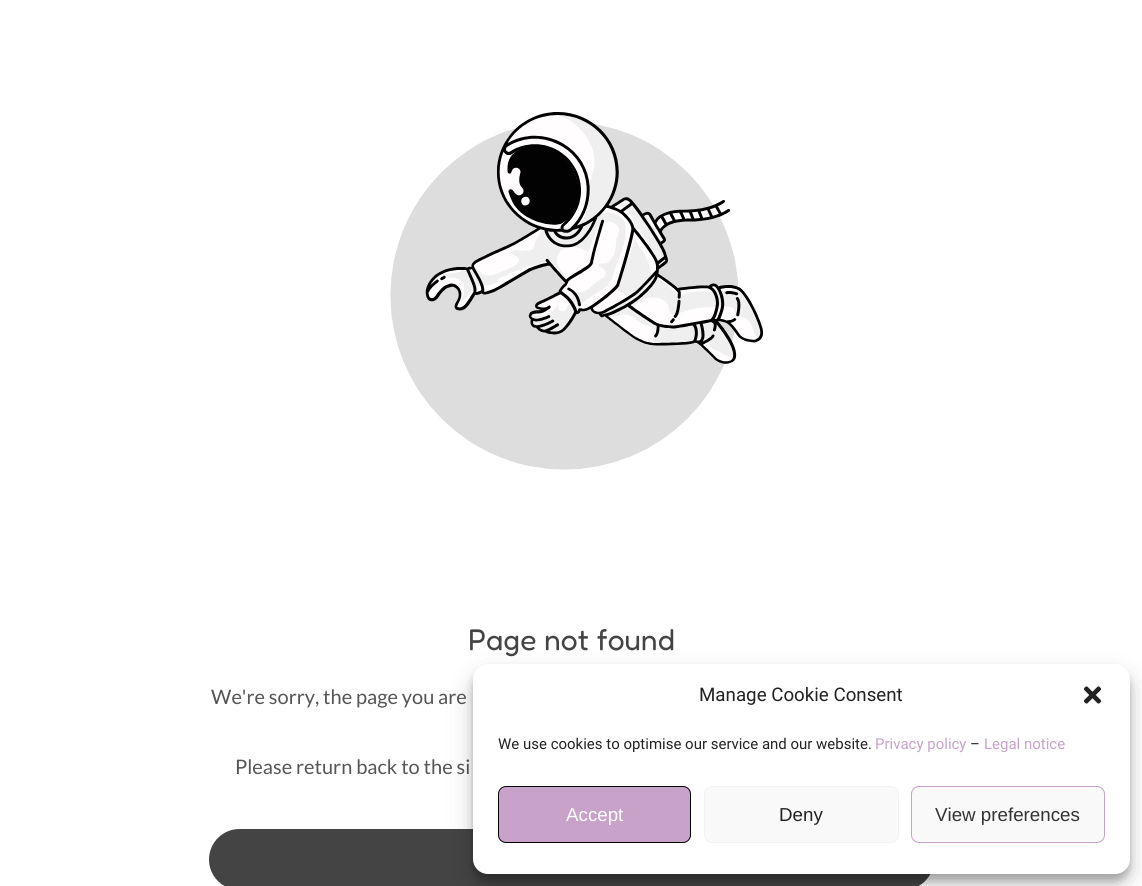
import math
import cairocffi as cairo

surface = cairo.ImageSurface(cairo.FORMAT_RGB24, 1142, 886)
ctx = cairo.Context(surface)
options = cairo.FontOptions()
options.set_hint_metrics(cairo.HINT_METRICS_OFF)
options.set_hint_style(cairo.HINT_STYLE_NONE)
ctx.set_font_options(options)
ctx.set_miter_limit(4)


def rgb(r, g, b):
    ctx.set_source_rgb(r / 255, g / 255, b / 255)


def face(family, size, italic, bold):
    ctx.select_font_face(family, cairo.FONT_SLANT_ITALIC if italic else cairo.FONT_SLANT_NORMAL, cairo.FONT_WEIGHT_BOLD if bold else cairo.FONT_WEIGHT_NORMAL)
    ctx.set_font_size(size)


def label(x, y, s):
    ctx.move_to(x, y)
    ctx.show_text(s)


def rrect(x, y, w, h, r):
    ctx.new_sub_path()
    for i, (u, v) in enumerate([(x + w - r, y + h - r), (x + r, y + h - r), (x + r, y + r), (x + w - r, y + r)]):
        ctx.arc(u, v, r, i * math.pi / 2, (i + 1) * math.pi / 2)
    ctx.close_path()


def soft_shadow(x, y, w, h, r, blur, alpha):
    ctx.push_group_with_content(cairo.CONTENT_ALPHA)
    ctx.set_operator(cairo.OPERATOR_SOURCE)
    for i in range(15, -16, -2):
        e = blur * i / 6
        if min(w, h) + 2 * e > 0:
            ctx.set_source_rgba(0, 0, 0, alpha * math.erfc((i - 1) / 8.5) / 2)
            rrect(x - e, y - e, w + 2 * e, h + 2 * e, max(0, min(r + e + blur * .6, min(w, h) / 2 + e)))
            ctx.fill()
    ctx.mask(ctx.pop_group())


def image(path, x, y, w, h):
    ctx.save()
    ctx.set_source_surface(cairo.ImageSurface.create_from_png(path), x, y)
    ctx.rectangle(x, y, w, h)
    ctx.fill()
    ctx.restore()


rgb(255, 255, 255)
ctx.paint()
image('image0.png', 390, 112, 374, 358)
face('Fredoka', 30, 0, 0)
rgb(68, 68, 68)
label(468, 650, 'Page not found')
face('Lato', 20, 0, 0)
rgb(85, 85, 85)
label(211, 704, 'We\'re sorry, the page you are')
label(235, 774, 'Please return back to the si')
rgb(68, 68, 68)
rrect(209, 829, 725, 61, 30.5)
ctx.fill()
rgb(0, 0, 0)
soft_shadow(473, 671, 657, 210, 15, 4, 0.23)
soft_shadow(473, 676, 657, 210, 15, 12.5, 0.19)
rgb(255, 255, 255)
rrect(473, 664, 657, 210, 15)
ctx.fill()
face('Roboto', 18.75, 0, 0)
rgb(34, 34, 34)
label(699, 701, 'Manage Cookie Consent')
image('image1.png', 1083, 686, 19, 18)
face('Roboto', 15, 0, 0)
label(498, 749, 'We use cookies to optimise our service and our website.')
rgb(200, 162, 200)
label(875, 749, 'Privacy policy')
rgb(34, 34, 34)
label(970, 749, '–')
rgb(200, 162, 200)
label(984, 749, 'Legal notice')
rrect(498.5, 786.5, 192, 56, 7.5)
ctx.fill_preserve()
rgb(0, 0, 0)
ctx.set_line_width(1)
ctx.stroke()
face('Liberation Sans', 18.75, 0, 0)
rgb(255, 255, 255)
label(566, 821, 'Accept')
rgb(249, 249, 249)
rrect(704.5, 786.5, 194, 56, 7.5)
ctx.fill_preserve()
rgb(242, 242, 242)
ctx.stroke()
rgb(34, 34, 34)
label(779, 821, 'Deny')
rgb(249, 249, 249)
rrect(911.5, 786.5, 193, 56, 7.5)
ctx.fill_preserve()
rgb(200, 162, 200)
ctx.stroke()
rgb(51, 51, 51)
label(935, 821, 'View preferences')
surface.write_to_png('render.png')
